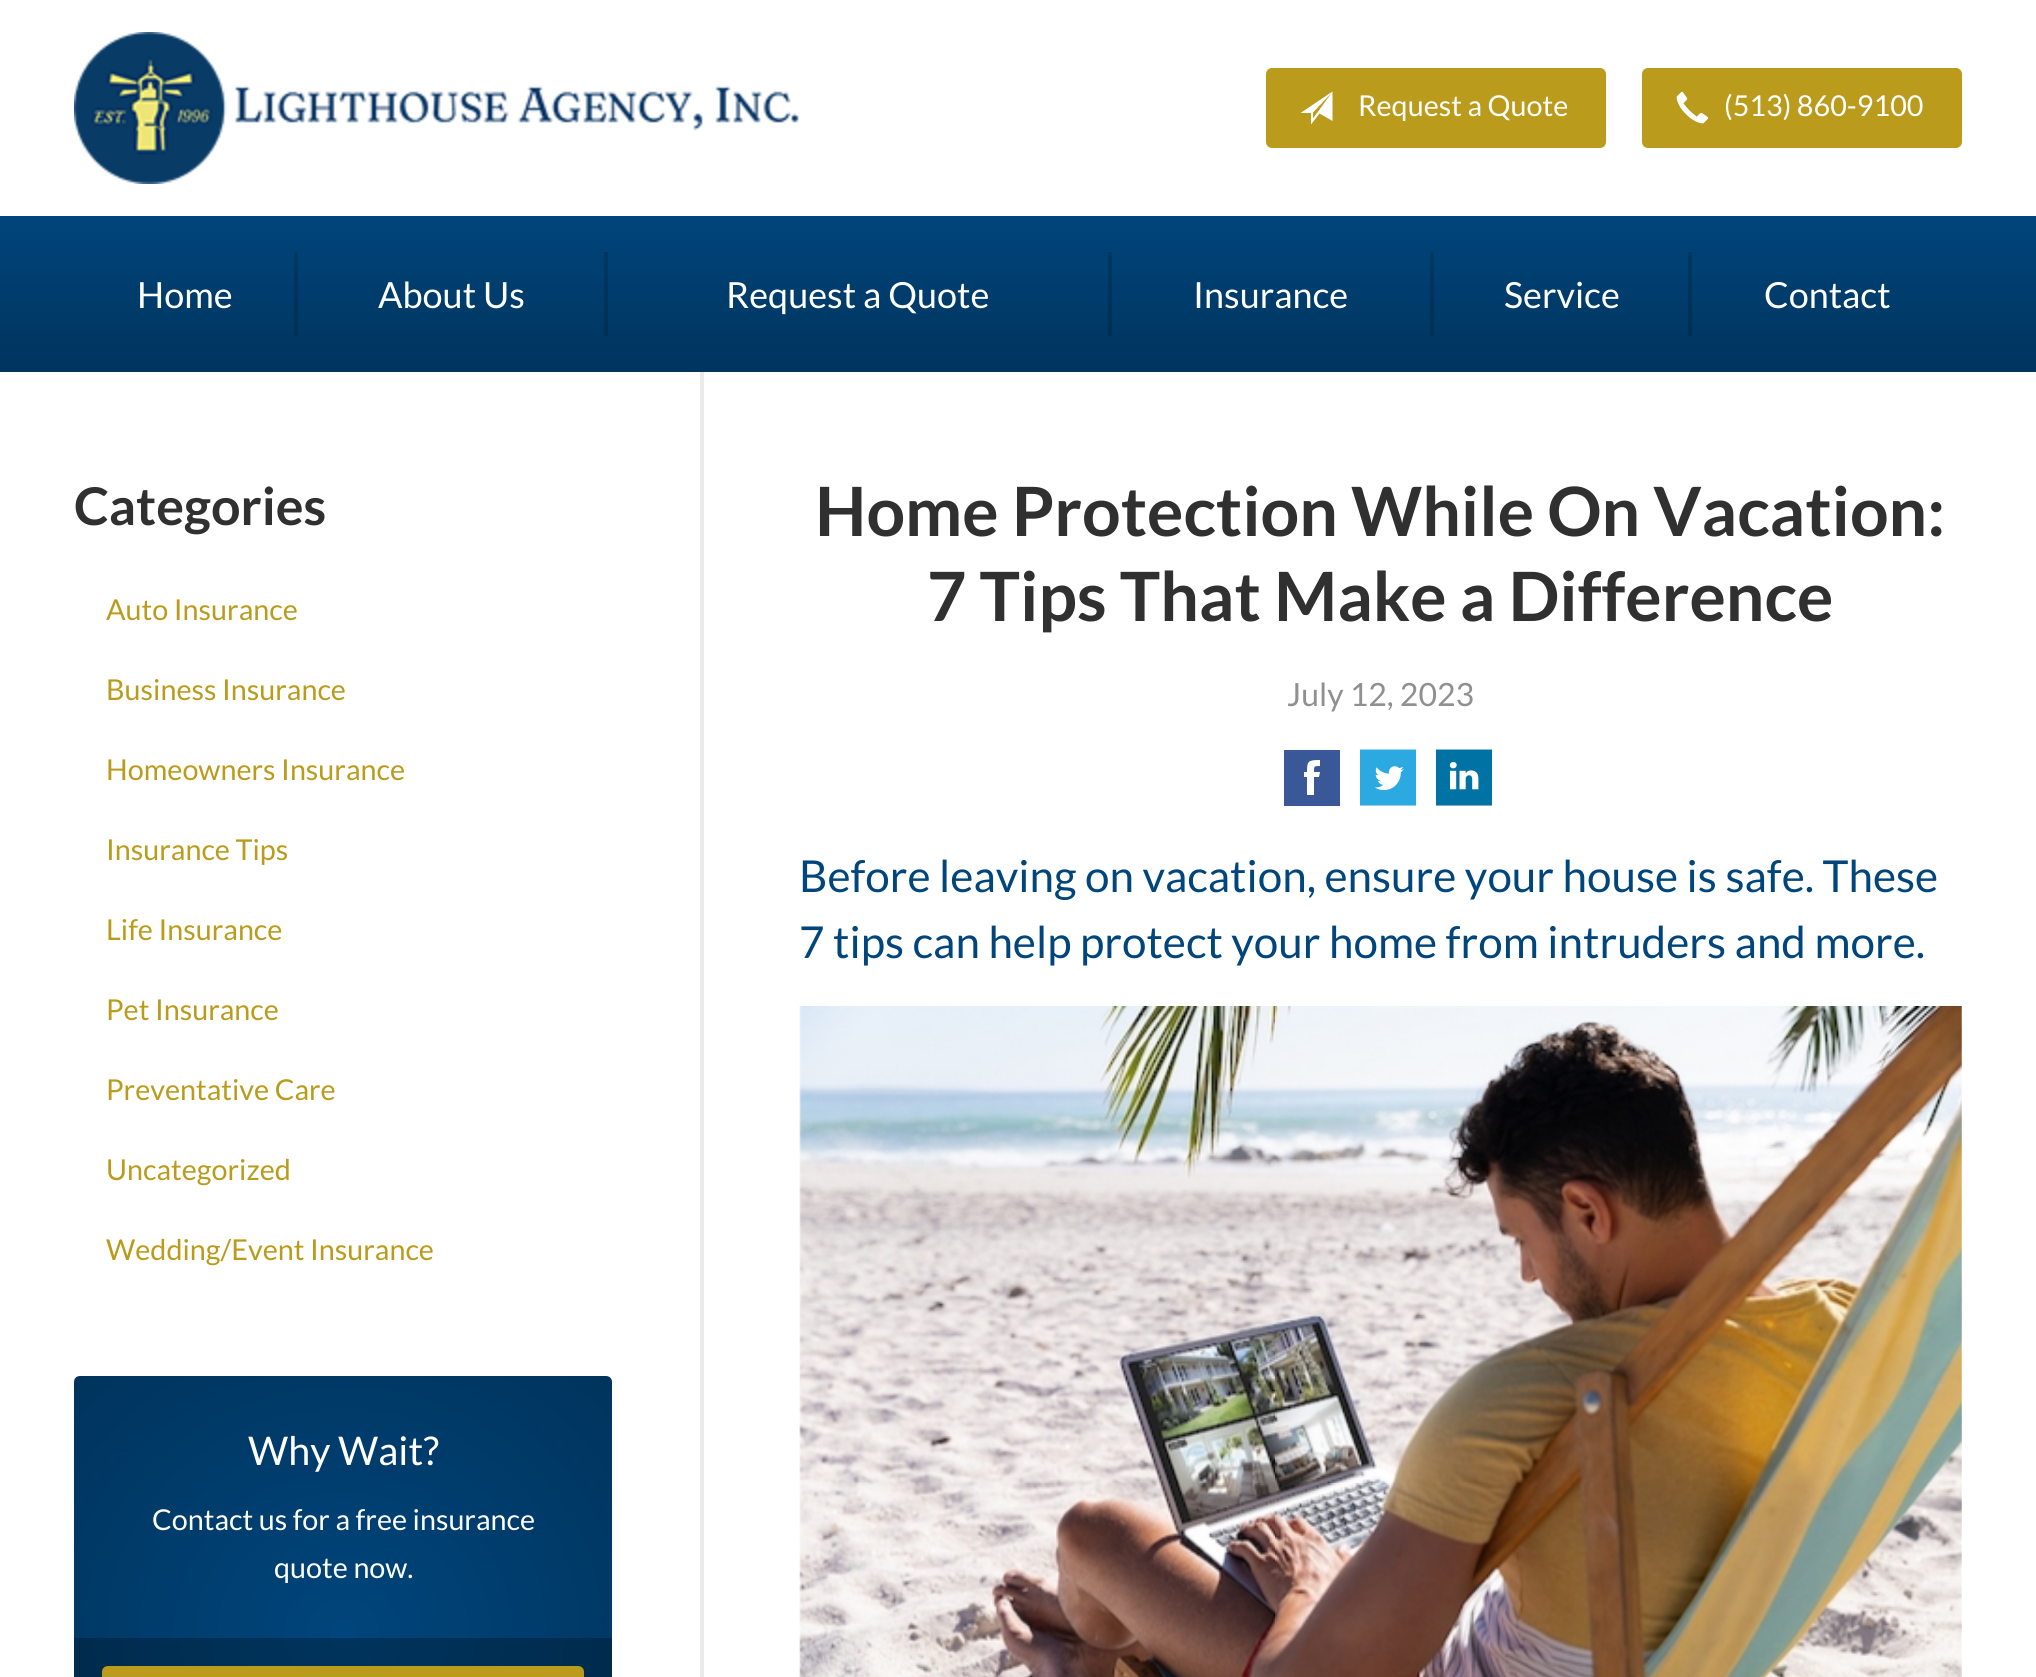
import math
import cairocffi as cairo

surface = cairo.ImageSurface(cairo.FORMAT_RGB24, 2036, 1677)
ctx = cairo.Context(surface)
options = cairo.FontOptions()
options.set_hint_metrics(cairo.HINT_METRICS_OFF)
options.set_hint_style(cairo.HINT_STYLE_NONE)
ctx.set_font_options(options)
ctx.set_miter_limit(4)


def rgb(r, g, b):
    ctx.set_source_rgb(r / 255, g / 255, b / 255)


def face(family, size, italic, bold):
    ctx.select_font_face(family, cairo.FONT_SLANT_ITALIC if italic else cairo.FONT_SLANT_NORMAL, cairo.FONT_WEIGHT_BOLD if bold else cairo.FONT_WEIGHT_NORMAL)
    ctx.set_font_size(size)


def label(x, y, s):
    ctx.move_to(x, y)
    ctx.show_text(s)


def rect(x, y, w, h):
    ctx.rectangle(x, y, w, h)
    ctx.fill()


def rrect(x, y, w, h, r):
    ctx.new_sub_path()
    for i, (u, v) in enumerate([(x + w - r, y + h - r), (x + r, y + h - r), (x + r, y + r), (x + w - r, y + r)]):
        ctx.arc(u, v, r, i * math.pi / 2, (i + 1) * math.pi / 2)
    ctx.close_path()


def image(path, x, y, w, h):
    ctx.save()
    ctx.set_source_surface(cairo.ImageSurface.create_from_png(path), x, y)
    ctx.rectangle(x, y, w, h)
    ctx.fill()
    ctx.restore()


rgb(255, 255, 255)
ctx.paint()
image('image0.png', 74, 32, 725, 152)
rgb(186, 155, 28)
rrect(1266, 68, 340, 80, 6)
ctx.fill()
rgb(255, 255, 255)
ctx.new_path()
ctx.move_to(1300.5, 113)
ctx.line_to(1311, 113)
ctx.line_to(1311, 124.5)
ctx.line_to(1319.5, 113.5)
ctx.line_to(1332.5, 121)
ctx.line_to(1332.5, 91.5)
ctx.close_path()
ctx.move_to(1313, 118.5)
ctx.line_to(1313, 112.5)
ctx.line_to(1331.5, 93)
ctx.close_path()
ctx.fill()
face('Lato', 28.75, 0, 0)
label(1358, 116, 'Request a Quote')
rgb(186, 155, 28)
rrect(1642, 68, 320, 80, 6)
ctx.fill()
image('image1.png', 1676, 91, 33, 33)
rgb(255, 255, 255)
label(1724, 116, '(513) 860-9100')
gradient = cairo.LinearGradient(1018, 216, 1018, 372)
gradient.add_color_stop_rgba(0, 0, 0.271, 0.486, 1)
gradient.add_color_stop_rgba(1, 0, 0.204, 0.365, 1)
ctx.set_source(gradient)
rect(0, 216, 2036, 156)
gradient = cairo.LinearGradient(1018, 216, 1018, 372)
gradient.add_color_stop_rgba(0, 0, 0.231, 0.412, 1)
gradient.add_color_stop_rgba(1, 0, 0.173, 0.31, 1)
ctx.set_source(gradient)
rect(1688, 252, 4, 84)
rect(1430, 252, 4, 84)
rect(1108, 252, 4, 84)
rect(604, 252, 4, 84)
rect(294, 252, 4, 84)
face('Lato', 36, 0, 0)
rgb(255, 255, 255)
label(137, 308, 'Home')
label(378, 308, 'About Us')
label(726, 308, 'Request a Quote')
label(1193, 308, 'Insurance')
label(1504, 308, 'Service')
label(1764, 308, 'Contact')
rgb(235, 234, 234)
rect(700, 372, 4, 1305)
face('Lato', 52, 0, 1)
rgb(48, 48, 48)
label(74, 525, 'Categories')
face('Lato', 28.75, 0, 0)
rgb(186, 155, 28)
label(106, 620, 'Auto Insurance')
label(106, 700, 'Business Insurance')
label(106, 780, 'Homeowners Insurance')
label(106, 860, 'Insurance Tips')
label(106, 940, 'Life Insurance')
label(106, 1020, 'Pet Insurance')
label(106, 1100, 'Preventative Care')
label(106, 1180, 'Uncategorized')
label(106, 1260, 'Wedding/Event Insurance')
gradient = cairo.RadialGradient(0, 0, 0, 0, 0, 1)
gradient.set_matrix(cairo.Matrix(1 / 380, 0, 0, 1 / 363, -1 * 343 / 380, -1 * 1633 / 363))
gradient.add_color_stop_rgba(0, 0, 0.271, 0.486, 1)
gradient.add_color_stop_rgba(1, 0, 0.204, 0.365, 1)
ctx.set_source(gradient)
ctx.new_path()
ctx.move_to(80, 1376)
ctx.line_to(606, 1376)
ctx.curve_to(609.5, 1376, 612, 1378.5, 612, 1382)
ctx.line_to(612, 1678)
ctx.line_to(74, 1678)
ctx.line_to(74, 1382)
ctx.curve_to(74, 1378.5, 76.5, 1376, 80, 1376)
ctx.close_path()
ctx.fill()
gradient = cairo.RadialGradient(0, 0, 0, 0, 0, 1)
gradient.set_matrix(cairo.Matrix(1 / 380, 0, 0, 1 / 363, -1 * 343 / 380, -1 * 1633 / 363))
gradient.add_color_stop_rgba(0, 0, 0.204, 0.365, 1)
gradient.add_color_stop_rgba(1, 0, 0.153, 0.275, 1)
ctx.set_source(gradient)
rect(74, 1638, 538, 39)
face('Lato', 39.5, 0, 0)
rgb(255, 255, 255)
label(248, 1465, 'Why Wait?')
face('Lato', 28.75, 0, 0)
label(152, 1530, 'Contact us for a free insurance')
label(274, 1578, 'quote now.')
rgb(186, 155, 28)
ctx.new_path()
ctx.move_to(108, 1666)
ctx.line_to(578, 1666)
ctx.curve_to(581.5, 1666, 584, 1668.5, 584, 1672)
ctx.line_to(584, 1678)
ctx.line_to(102, 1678)
ctx.line_to(102, 1672)
ctx.curve_to(102, 1668.5, 104.5, 1666, 108, 1666)
ctx.close_path()
ctx.fill()
face('Lato', 68, 0, 1)
rgb(48, 48, 48)
label(815, 536, 'Home Protection While On Vacation:')
label(927, 621, '7 Tips That Make a Difference')
face('Lato', 32, 0, 0)
rgb(144, 144, 144)
label(1287, 706, 'July 12, 2023')
rgb(58, 88, 151)
ctx.new_path()
ctx.move_to(1284, 806)
ctx.line_to(1340, 806)
ctx.line_to(1340, 750)
ctx.line_to(1284, 750)
ctx.close_path()
ctx.move_to(1304, 772)
ctx.line_to(1307, 772)
ctx.curve_to(1307, 761, 1308, 760, 1320, 760)
ctx.line_to(1320, 766)
ctx.curve_to(1314, 766, 1314, 766, 1314, 772)
ctx.line_to(1320, 772)
ctx.line_to(1319, 777)
ctx.line_to(1314, 777)
ctx.line_to(1314, 795)
ctx.line_to(1307, 795)
ctx.line_to(1307, 777)
ctx.line_to(1304, 777)
ctx.close_path()
ctx.fill()
image('image2.png', 1360, 749, 56, 57)
image('image3.png', 1436, 749, 56, 57)
face('Lato', 44, 0, 0)
rgb(0, 69, 124)
label(799, 892, 'Before leaving on vacation, ensure your house is safe. These')
label(799, 958, '7 tips can help protect your home from intruders and more.')
image('image4.png', 799, 1006, 1163, 671)
surface.write_to_png('render.png')
